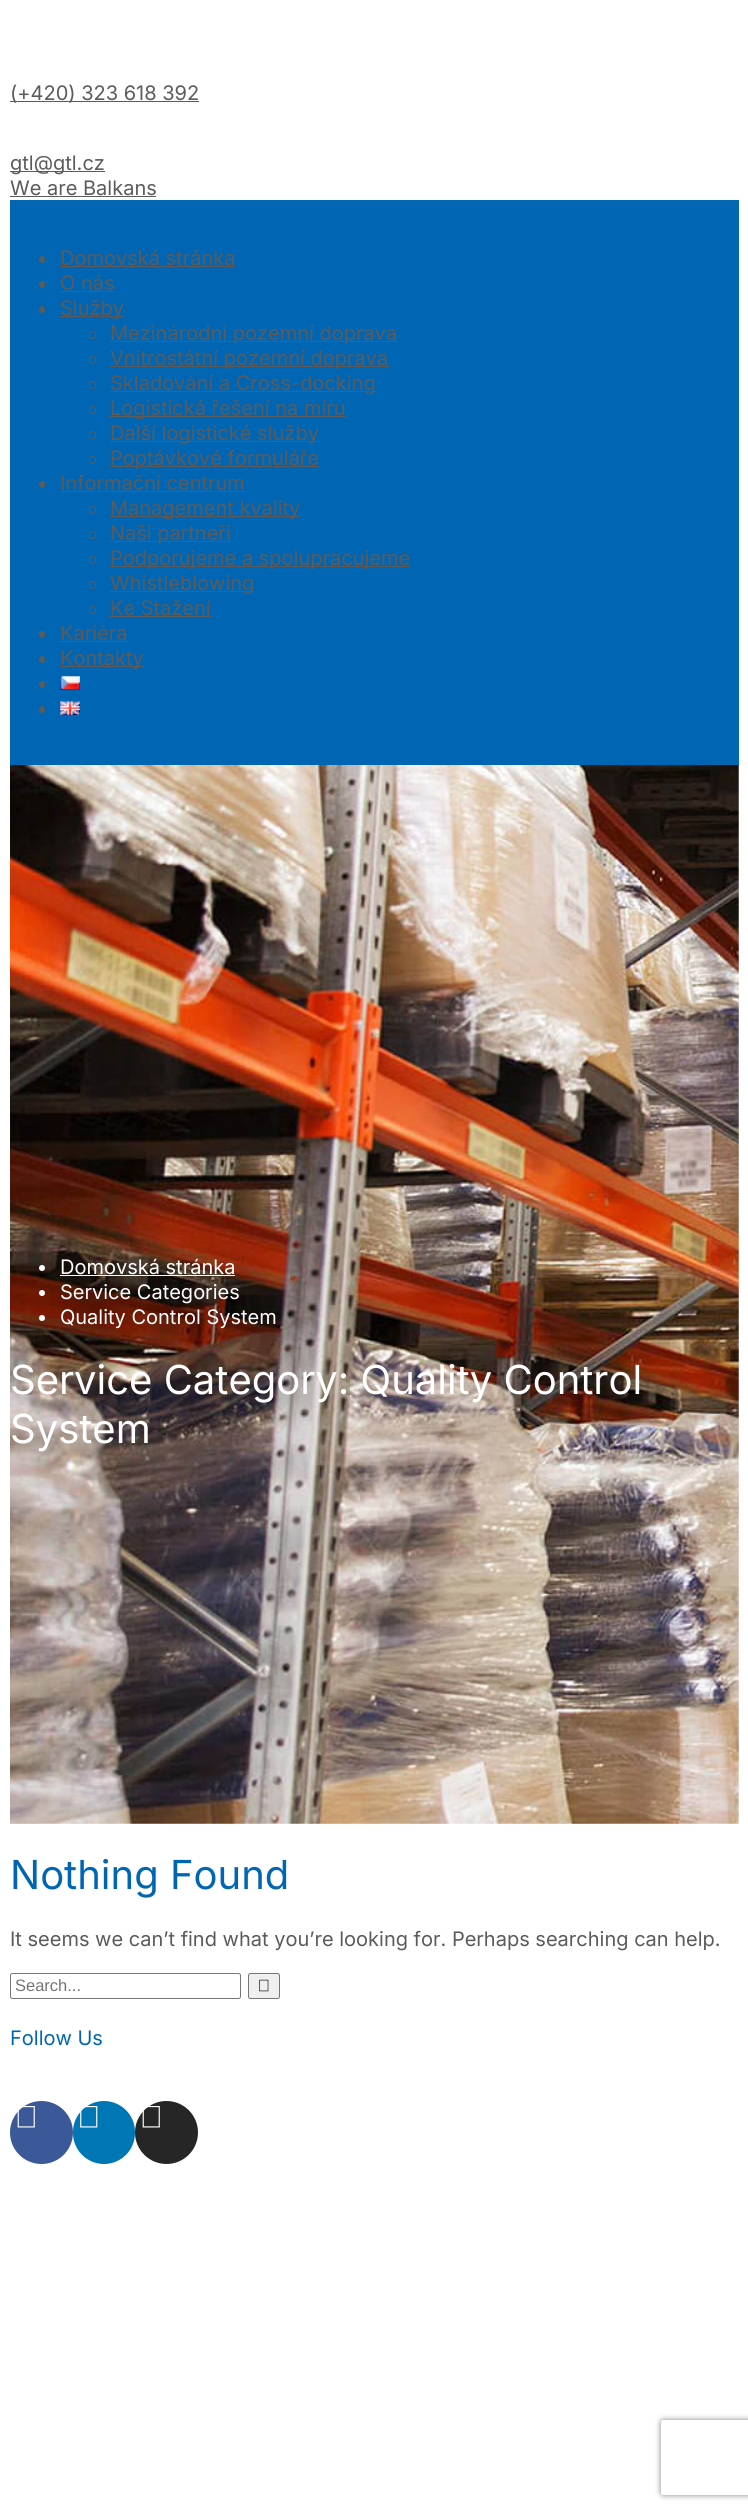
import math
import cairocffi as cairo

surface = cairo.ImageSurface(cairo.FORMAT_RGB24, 748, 2512)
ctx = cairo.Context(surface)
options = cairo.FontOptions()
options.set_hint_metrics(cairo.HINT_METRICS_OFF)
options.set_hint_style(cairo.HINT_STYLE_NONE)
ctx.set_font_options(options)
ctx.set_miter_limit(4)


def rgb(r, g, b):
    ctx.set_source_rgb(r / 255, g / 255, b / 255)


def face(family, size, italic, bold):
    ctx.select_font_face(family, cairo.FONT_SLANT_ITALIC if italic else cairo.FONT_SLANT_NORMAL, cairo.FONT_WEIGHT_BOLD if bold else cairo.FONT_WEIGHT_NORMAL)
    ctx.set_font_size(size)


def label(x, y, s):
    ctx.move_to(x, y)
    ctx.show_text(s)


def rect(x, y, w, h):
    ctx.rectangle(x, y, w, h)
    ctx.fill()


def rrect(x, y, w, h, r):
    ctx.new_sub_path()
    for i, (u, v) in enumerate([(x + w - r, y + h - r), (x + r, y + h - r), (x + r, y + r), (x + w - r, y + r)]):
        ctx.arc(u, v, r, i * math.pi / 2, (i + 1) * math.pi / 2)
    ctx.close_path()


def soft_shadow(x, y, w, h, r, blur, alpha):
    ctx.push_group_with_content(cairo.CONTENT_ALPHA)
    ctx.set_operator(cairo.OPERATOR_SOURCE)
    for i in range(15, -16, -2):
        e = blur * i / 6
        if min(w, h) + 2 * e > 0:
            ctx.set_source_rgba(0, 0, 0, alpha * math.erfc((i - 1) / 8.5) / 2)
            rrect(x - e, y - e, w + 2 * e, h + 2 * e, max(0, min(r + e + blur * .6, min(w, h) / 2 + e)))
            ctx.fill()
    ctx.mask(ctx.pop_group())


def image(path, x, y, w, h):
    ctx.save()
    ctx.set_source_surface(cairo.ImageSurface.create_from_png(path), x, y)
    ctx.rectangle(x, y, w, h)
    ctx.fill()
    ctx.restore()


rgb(255, 255, 255)
ctx.paint()
rgb(91, 91, 91)
rect(10, 101, 189, 1)
face('Inter', 20, 0, 0)
label(10, 100, '(+420) 323 618 392')
rect(10, 171, 95, 1)
label(10, 170, 'gtl@gtl.cz')
label(10, 195, 'We are Balkans')
rect(10, 196, 146, 1)
rgb(0, 102, 179)
rect(10, 200, 729, 565)
rgb(91, 91, 91)
rrect(39, 256, 6, 7, 3)
ctx.fill()
label(60, 265, 'Domovská stránka')
rect(60, 266, 175, 1)
rrect(39, 281, 6, 7, 3)
ctx.fill()
label(60, 290, 'O nás')
rect(60, 291, 55, 1)
rrect(39, 306, 6, 7, 3)
ctx.fill()
rect(60, 316, 64, 1)
label(60, 315, 'Služby')
rrect(89.5, 331.5, 6, 7, 3)
ctx.set_line_width(1)
ctx.stroke()
rect(110, 341, 288, 1)
label(110, 340, 'Mezinárodní pozemní doprava')
rrect(89.5, 356.5, 6, 7, 3)
ctx.stroke()
rect(110, 366, 279, 1)
label(110, 365, 'Vnitrostátní pozemní doprava')
rrect(89.5, 381.5, 6, 7, 3)
ctx.stroke()
rect(110, 391, 266, 1)
label(110, 390, 'Skladování a Cross-docking')
rrect(89.5, 406.5, 6, 7, 3)
ctx.stroke()
rect(110, 416, 236, 1)
label(110, 415, 'Logistická řešení na míru')
rrect(89.5, 431.5, 6, 7, 3)
ctx.stroke()
rect(110, 441, 209, 1)
label(110, 440, 'Další logistické služby')
rrect(89.5, 456.5, 6, 7, 3)
ctx.stroke()
rect(110, 466, 209, 1)
label(110, 465, 'Poptávkové formuláře')
rrect(39, 481, 6, 7, 3)
ctx.fill()
label(60, 490, 'Informační centrum')
rect(60, 491, 185, 1)
rrect(89.5, 506.5, 6, 7, 3)
ctx.stroke()
rect(110, 516, 190, 1)
label(110, 515, 'Management kvality')
rrect(89.5, 531.5, 6, 7, 3)
ctx.stroke()
rect(110, 541, 121, 1)
label(110, 540, 'Naši partneři')
rrect(89.5, 556.5, 6, 7, 3)
ctx.stroke()
rect(110, 566, 300, 1)
label(110, 565, 'Podporujeme a spolupracujeme')
rrect(89.5, 581.5, 6, 7, 3)
ctx.stroke()
rect(110, 591, 144, 1)
label(110, 590, 'Whistleblowing')
rrect(89.5, 606.5, 6, 7, 3)
ctx.stroke()
label(110, 615, 'Ke Stažení')
rect(110, 616, 101, 1)
rrect(39, 631, 6, 7, 3)
ctx.fill()
label(60, 640, 'Kariéra')
rect(60, 641, 68, 1)
rrect(39, 656, 6, 7, 3)
ctx.fill()
rect(60, 666, 84, 1)
label(60, 665, 'Kontakty')
rrect(39, 681, 6, 7, 3)
ctx.fill()
image('image0.png', 60, 676, 20, 14)
rrect(39, 706, 6, 7, 3)
ctx.fill()
image('image1.png', 60, 701, 20, 14)
image('image2.png', 10, 765, 729, 1059)
rgb(255, 255, 255)
ctx.arc(42, 1268, 3, 0, 2 * math.pi)
ctx.fill()
label(60, 1274, 'Domovská stránka')
rect(60, 1275, 175, 1)
ctx.new_path()
ctx.arc(42, 1293, 3, 0, 2 * math.pi)
ctx.fill()
label(60, 1299, 'Service Categories')
ctx.new_path()
ctx.arc(42, 1318, 3, 0, 2 * math.pi)
ctx.fill()
label(60, 1324, 'Quality Control System')
face('Inter', 40, 0, 0)
label(10, 1394, 'Service Category: Quality Control')
label(10, 1443, 'System')
rgb(0, 102, 179)
label(10, 1889, 'Nothing Found')
face('Inter', 20, 0, 0)
rgb(91, 91, 91)
label(10, 1946, 'It seems we can’t find what you’re looking for. Perhaps searching can help.')
rrect(10.5, 1973.5, 230, 25, 2)
rgb(118, 118, 118)
ctx.stroke()
face('Liberation Sans', 16.5, 0, 0)
rgb(117, 117, 117)
label(15, 1991, 'Search...')
rgb(239, 239, 239)
rrect(248.5, 1973.5, 31, 25, 2)
ctx.fill_preserve()
rgb(118, 118, 118)
ctx.stroke()
image('image3.png', 259, 1979, 10, 13)
face('Inter', 20, 0, 0)
rgb(0, 102, 179)
label(10, 2045, 'Follow Us')
rgb(59, 89, 152)
ctx.new_path()
ctx.arc(41.5, 2132.5, 31.5, 0, 2 * math.pi)
ctx.fill()
image('image4.png', 17, 2106, 18, 22)
rgb(0, 119, 181)
rrect(73, 2101, 62, 63, 31)
ctx.fill()
image('image5.png', 80, 2106, 18, 22)
rgb(38, 38, 38)
ctx.arc(166.5, 2132.5, 31.5, 0, 2 * math.pi)
ctx.fill()
image('image6.png', 142, 2106, 18, 22)
ctx.save()
ctx.set_fill_rule(cairo.FILL_RULE_EVEN_ODD)
ctx.new_path()
ctx.move_to(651, 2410)
ctx.line_to(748, 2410)
ctx.line_to(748, 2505)
ctx.line_to(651, 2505)
ctx.close_path()
ctx.move_to(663.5, 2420)
ctx.line_to(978.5, 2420)
ctx.curve_to(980, 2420, 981, 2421, 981, 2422.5)
ctx.line_to(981, 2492.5)
ctx.curve_to(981, 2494, 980, 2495, 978.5, 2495)
ctx.line_to(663.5, 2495)
ctx.curve_to(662, 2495, 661, 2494, 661, 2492.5)
ctx.line_to(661, 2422.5)
ctx.curve_to(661, 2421, 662, 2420, 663.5, 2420)
ctx.close_path()
ctx.clip()
rgb(128, 128, 128)
soft_shadow(661, 2420, 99, 75, 2.5, 3, 1)
ctx.restore()
surface.write_to_png('render.png')
